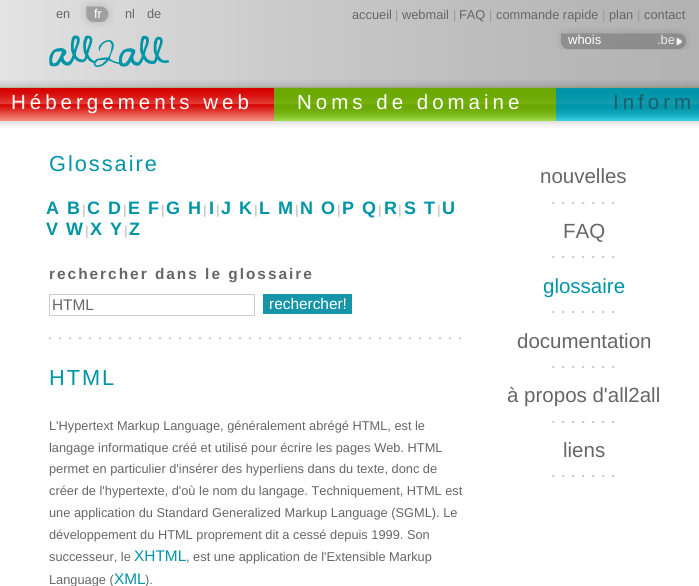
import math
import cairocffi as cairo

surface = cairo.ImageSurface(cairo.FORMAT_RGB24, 699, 586)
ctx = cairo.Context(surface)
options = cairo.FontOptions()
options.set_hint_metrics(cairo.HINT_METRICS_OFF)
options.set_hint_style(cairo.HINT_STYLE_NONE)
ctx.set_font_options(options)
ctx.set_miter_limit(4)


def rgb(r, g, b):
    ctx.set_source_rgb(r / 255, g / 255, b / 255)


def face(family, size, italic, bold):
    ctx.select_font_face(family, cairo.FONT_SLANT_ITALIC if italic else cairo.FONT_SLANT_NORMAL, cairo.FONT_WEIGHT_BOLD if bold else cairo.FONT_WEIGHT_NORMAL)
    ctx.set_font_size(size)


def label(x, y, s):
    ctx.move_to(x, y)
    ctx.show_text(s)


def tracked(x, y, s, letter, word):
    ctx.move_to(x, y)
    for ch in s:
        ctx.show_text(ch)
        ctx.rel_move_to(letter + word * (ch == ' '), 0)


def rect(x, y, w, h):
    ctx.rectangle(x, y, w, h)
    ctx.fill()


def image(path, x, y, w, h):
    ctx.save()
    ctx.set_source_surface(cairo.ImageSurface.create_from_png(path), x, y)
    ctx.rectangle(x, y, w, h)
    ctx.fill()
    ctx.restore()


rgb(255, 255, 255)
ctx.paint()
image('image0.png', 0, 0, 699, 88)
face('Liberation Sans', 12.8, 0, 0)
rgb(102, 102, 102)
label(56, 18, 'en')
image('image1.png', 80, 0, 34, 28)
rgb(255, 255, 255)
label(94, 18, 'fr')
rgb(102, 102, 102)
label(125, 18, 'nl')
label(147, 18, 'de')
label(352, 19, 'accueil')
rgb(153, 153, 153)
label(395, 19, '|')
rgb(102, 102, 102)
label(402, 19, 'webmail')
rgb(153, 153, 153)
label(453, 19, '|')
rgb(102, 102, 102)
label(459, 19, 'FAQ')
rgb(153, 153, 153)
label(489, 19, '|')
rgb(102, 102, 102)
label(496, 19, 'commande rapide')
rgb(153, 153, 153)
label(602, 19, '|')
rgb(102, 102, 102)
label(609, 19, 'plan')
rgb(153, 153, 153)
label(637, 19, '|')
rgb(102, 102, 102)
label(644, 19, 'contact')
image('image2.png', 49, 35, 120, 32)
image('image3.png', 556, 28, 134, 22)
face('Liberation Sans', 13, 0, 0)
rgb(255, 255, 255)
label(568, 44, 'whois')
face('Liberation Sans', 12.8, 0, 0)
rgb(238, 238, 238)
label(657, 44, '.be')
image('image4.png', 0, 80, 699, 48)
image('image5.png', 0, 88, 274, 33)
face('Liberation Sans', 20.5, 0, 0)
rgb(255, 255, 255)
tracked(11, 109, 'Hébergements web', 4, 0)
tracked(297, 109, 'Noms de domaine', 4, 0)
image('image6.png', 556, 88, 143, 33)
rgb(29, 92, 107)
tracked(613, 109, 'Inform', 4, 0)
face('Liberation Sans', 21.75, 0, 0)
rgb(0, 148, 168)
tracked(49, 171, 'Glossaire', 2, 0)
image('image7.png', 49, 337, 412, 3)
face('Liberation Sans', 18, 0, 1)
tracked(46, 214, 'A', -3, 0)
tracked(67, 214, 'B', -3, 0)
face('Liberation Sans', 12.8, 0, 1)
rgb(204, 204, 204)
tracked(82, 214, '|', -3, 0)
face('Liberation Sans', 18, 0, 1)
rgb(0, 148, 168)
tracked(87, 214, 'C', -3, 0)
tracked(108, 214, 'D', -3, 0)
face('Liberation Sans', 12.8, 0, 1)
rgb(204, 204, 204)
tracked(123, 214, '|', -3, 0)
face('Liberation Sans', 18, 0, 1)
rgb(0, 148, 168)
tracked(128, 214, 'E', -3, 0)
tracked(148, 214, 'F', -3, 0)
face('Liberation Sans', 12.8, 0, 1)
rgb(204, 204, 204)
tracked(161, 214, '|', -3, 0)
face('Liberation Sans', 18, 0, 1)
rgb(0, 148, 168)
tracked(166, 214, 'G', -3, 0)
tracked(188, 214, 'H', -3, 0)
face('Liberation Sans', 12.8, 0, 1)
rgb(204, 204, 204)
tracked(203, 214, '|', -3, 0)
face('Liberation Sans', 18, 0, 1)
rgb(0, 148, 168)
tracked(209, 214, 'I', -3, 0)
face('Liberation Sans', 12.8, 0, 1)
rgb(204, 204, 204)
tracked(216, 214, '|', -3, 0)
face('Liberation Sans', 18, 0, 1)
rgb(0, 148, 168)
tracked(221, 214, 'J', -3, 0)
tracked(239, 214, 'K', -3, 0)
face('Liberation Sans', 12.8, 0, 1)
rgb(204, 204, 204)
tracked(254, 214, '|', -3, 0)
face('Liberation Sans', 18, 0, 1)
rgb(0, 148, 168)
tracked(259, 214, 'L', -3, 0)
tracked(278, 214, 'M', -3, 0)
face('Liberation Sans', 12.8, 0, 1)
rgb(204, 204, 204)
tracked(295, 214, '|', -3, 0)
face('Liberation Sans', 18, 0, 1)
rgb(0, 148, 168)
tracked(300, 214, 'N', -3, 0)
tracked(321, 214, 'O', -3, 0)
face('Liberation Sans', 12.8, 0, 1)
rgb(204, 204, 204)
tracked(337, 214, '|', -3, 0)
face('Liberation Sans', 18, 0, 1)
rgb(0, 148, 168)
tracked(342, 214, 'P', -3, 0)
tracked(362, 214, 'Q', -3, 0)
face('Liberation Sans', 12.8, 0, 1)
rgb(204, 204, 204)
tracked(378, 214, '|', -3, 0)
face('Liberation Sans', 18, 0, 1)
rgb(0, 148, 168)
tracked(384, 214, 'R', -3, 0)
face('Liberation Sans', 12.8, 0, 1)
rgb(204, 204, 204)
tracked(398, 214, '|', -3, 0)
face('Liberation Sans', 18, 0, 1)
rgb(0, 148, 168)
tracked(404, 214, 'S', -3, 0)
tracked(424, 214, 'T', -3, 0)
face('Liberation Sans', 12.8, 0, 1)
rgb(204, 204, 204)
tracked(437, 214, '|', -3, 0)
face('Liberation Sans', 18, 0, 1)
rgb(0, 148, 168)
tracked(442, 214, 'U', -3, 0)
tracked(46, 235, 'V', -3, 0)
tracked(66, 235, 'W', -3, 0)
face('Liberation Sans', 12.8, 0, 1)
rgb(204, 204, 204)
tracked(85, 235, '|', -3, 0)
face('Liberation Sans', 18, 0, 1)
rgb(0, 148, 168)
tracked(90, 235, 'X', -3, 0)
tracked(110, 235, 'Y', -3, 0)
face('Liberation Sans', 12.8, 0, 1)
rgb(204, 204, 204)
tracked(124, 235, '|', -3, 0)
face('Liberation Sans', 18, 0, 1)
rgb(0, 148, 168)
tracked(129, 235, 'Z', -3, 0)
face('Liberation Sans', 15.4, 0, 1)
rgb(102, 102, 102)
tracked(49, 279, 'rechercher dans le glossaire', 2, 0)
ctx.rectangle(49.5, 294.5, 205, 21)
rgb(204, 204, 204)
ctx.set_line_width(1)
ctx.stroke()
face('Liberation Sans', 15.4, 0, 0)
rgb(102, 102, 102)
label(52, 310, 'HTML')
rgb(22, 148, 168)
rect(263, 294, 89, 20)
rgb(255, 255, 255)
label(269, 309, 'rechercher!')
face('Liberation Sans', 21.75, 0, 0)
rgb(0, 148, 168)
tracked(49, 385, 'HTML', 2, 0)
face('Liberation Sans', 12.8, 0, 0)
rgb(102, 102, 102)
label(49, 430, 'L\'Hypertext Markup Language, généralement abrégé HTML, est le')
label(49, 452, 'langage informatique créé et utilisé pour écrire les pages Web. HTML')
label(49, 473, 'permet en particulier d\'insérer des hyperliens dans du texte, donc de')
label(49, 495, 'créer de l\'hypertexte, d\'où le nom du langage. Techniquement, HTML est')
label(49, 517, 'une application du Standard Generalized Markup Language (SGML). Le')
label(49, 539, 'développement du HTML proprement dit a cessé depuis 1999. Son')
label(49, 561, 'successeur, le')
face('Liberation Sans', 15.4, 0, 0)
rgb(0, 148, 168)
label(134, 561, 'XHTML')
face('Liberation Sans', 12.8, 0, 0)
rgb(102, 102, 102)
label(186, 561, ', est une application de l\'Extensible Markup')
label(49, 584, 'Language (')
face('Liberation Sans', 15.4, 0, 0)
rgb(0, 148, 168)
label(114, 584, 'XML')
face('Liberation Sans', 12.8, 0, 0)
rgb(102, 102, 102)
label(145, 584, ').')
image('image8.png', 552, 202, 63, 2)
face('Liberation Sans', 20.5, 0, 0)
label(540, 183, 'nouvelles')
image('image8.png', 552, 256, 63, 2)
label(563, 238, 'FAQ')
image('image8.png', 552, 311, 63, 2)
rgb(0, 148, 168)
label(543, 293, 'glossaire')
image('image8.png', 552, 366, 63, 2)
rgb(102, 102, 102)
label(517, 348, 'documentation')
image('image8.png', 552, 421, 63, 2)
label(507, 402, 'à propos d\'all2all')
image('image8.png', 552, 475, 63, 2)
label(563, 457, 'liens')
surface.write_to_png('render.png')
